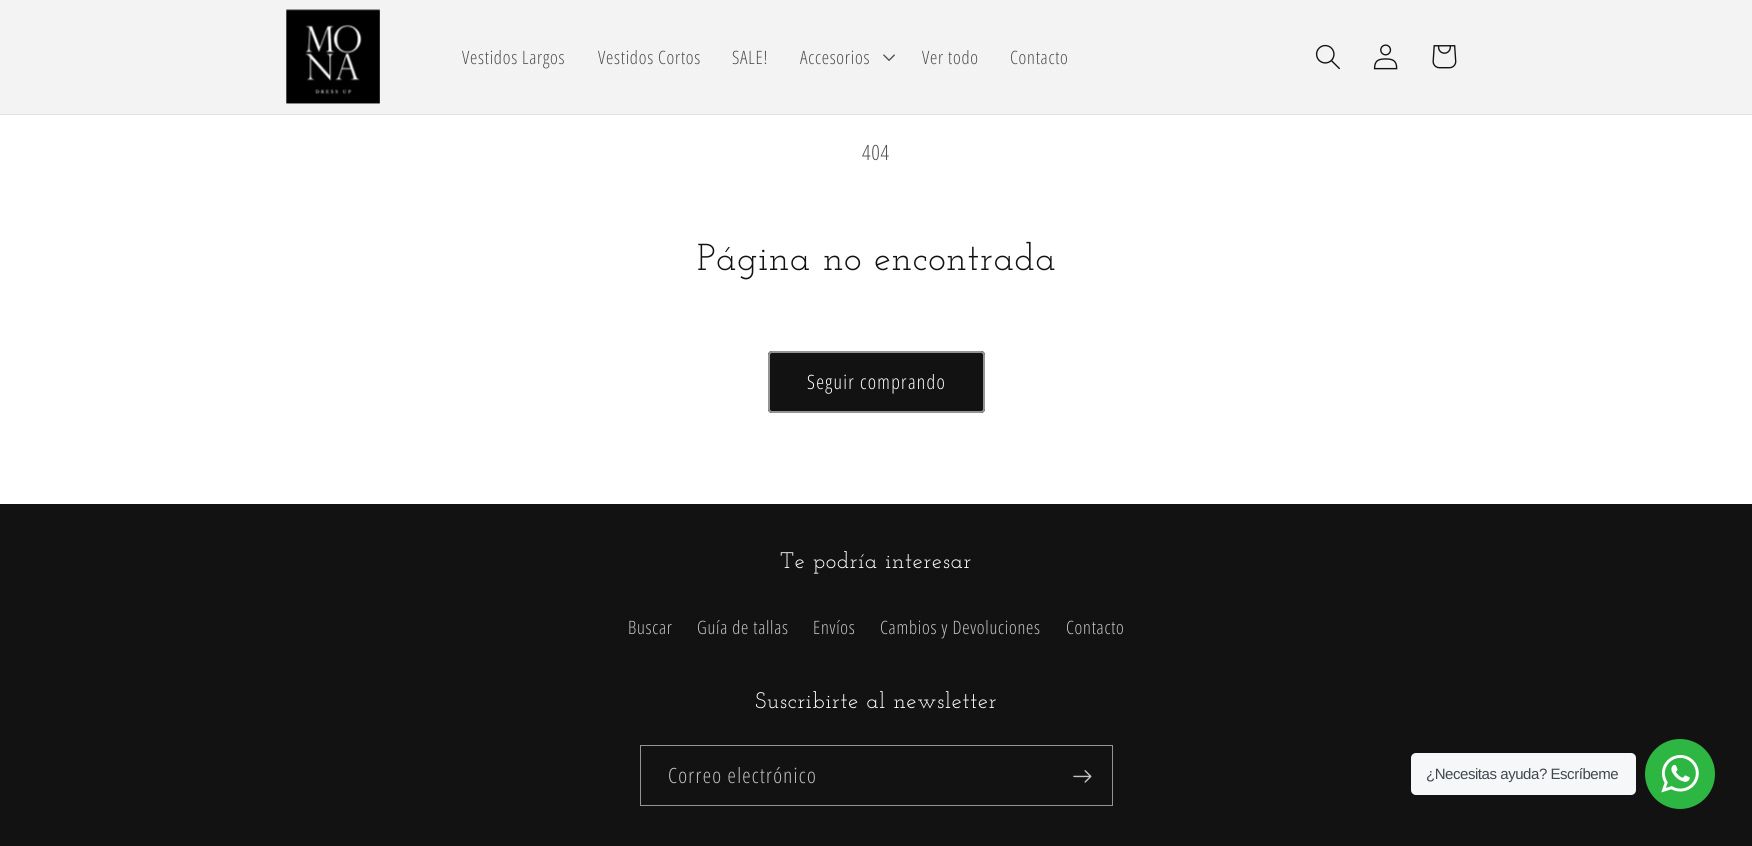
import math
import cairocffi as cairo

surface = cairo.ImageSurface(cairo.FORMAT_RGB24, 1752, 846)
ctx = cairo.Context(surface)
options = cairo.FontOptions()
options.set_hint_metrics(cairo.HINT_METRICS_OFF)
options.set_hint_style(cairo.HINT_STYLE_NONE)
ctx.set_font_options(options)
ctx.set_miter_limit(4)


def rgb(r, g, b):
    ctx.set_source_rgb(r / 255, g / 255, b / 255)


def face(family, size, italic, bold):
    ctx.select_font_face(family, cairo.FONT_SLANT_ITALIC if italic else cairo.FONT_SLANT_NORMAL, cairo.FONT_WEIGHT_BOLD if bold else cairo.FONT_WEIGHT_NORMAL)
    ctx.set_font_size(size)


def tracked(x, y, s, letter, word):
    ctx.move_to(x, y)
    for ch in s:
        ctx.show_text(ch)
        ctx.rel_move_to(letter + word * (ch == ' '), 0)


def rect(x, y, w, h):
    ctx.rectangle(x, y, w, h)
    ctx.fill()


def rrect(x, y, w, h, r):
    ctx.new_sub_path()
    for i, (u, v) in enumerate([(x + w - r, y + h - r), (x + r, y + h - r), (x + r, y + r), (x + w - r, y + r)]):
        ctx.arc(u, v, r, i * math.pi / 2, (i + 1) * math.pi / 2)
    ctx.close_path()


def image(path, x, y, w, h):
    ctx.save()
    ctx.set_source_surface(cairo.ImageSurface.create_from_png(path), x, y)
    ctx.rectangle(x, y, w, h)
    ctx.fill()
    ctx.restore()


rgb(255, 255, 255)
ctx.paint()
rgb(243, 243, 243)
rect(0, 0, 1752, 114)
rgb(225, 225, 225)
rect(0, 114, 1752, 1)
image('image0.png', 286, 9, 94, 95)
face('Open Sans Condensed Light', 18.4, 0, 0)
rgb(77, 77, 77)
tracked(462, 64, 'Vestidos Largos', 0.75, 0)
tracked(598, 64, 'Vestidos Cortos', 0.75, 0)
tracked(732, 64, 'SALE!', 0.75, 0)
tracked(800, 64, 'Accesorios', 0.75, 0)
image('image1.png', 883, 54, 12, 7)
tracked(922, 64, 'Ver todo', 0.75, 0)
tracked(1010, 64, 'Contacto', 0.75, 0)
image('image2.png', 1315, 44, 25, 26)
image('image3.png', 1373, 44, 25, 26)
image('image4.png', 1432, 45, 25, 24)
face('Open Sans Condensed Light', 21, 0, 0)
tracked(862, 160, '404', 0.75, 0)
face('Josefin Slab', 37.5, 0, 0)
rgb(18, 18, 18)
tracked(697, 270, 'Página no encontrada', 0.75, 0)
rrect(768, 351, 217, 62, 4)
ctx.fill()
rrect(768.5, 351.5, 216, 61, 3.5)
ctx.set_line_width(1)
ctx.stroke()
rrect(769, 352, 215, 60, 3)
ctx.set_source_rgba(1, 1, 1, 0.55)
ctx.set_line_width(2)
ctx.stroke()
face('Open Sans Condensed Light', 19.75, 0, 0)
rgb(255, 255, 255)
tracked(807, 389, 'Seguir comprando', 1.3, 0)
rgb(18, 18, 18)
rect(0, 504, 1752, 342)
face('Josefin Slab', 22.5, 0, 0)
rgb(255, 255, 255)
tracked(780, 568, 'Te podría interesar', 0.75, 0)
face('Open Sans Condensed Light', 18.4, 0, 0)
rgb(196, 196, 196)
tracked(628, 634, 'Buscar', 0.75, 0)
tracked(697, 634, 'Guía de tallas', 0.75, 0)
tracked(813, 634, 'Envíos', 0.75, 0)
tracked(880, 634, 'Cambios y Devoluciones', 0.75, 0)
tracked(1066, 634, 'Contacto', 0.75, 0)
face('Josefin Slab', 22.5, 0, 0)
rgb(255, 255, 255)
tracked(755, 708, 'Suscribirte al newsletter', 0.75, 0)
ctx.rectangle(640.5, 745.5, 472, 60)
rgb(148, 148, 148)
ctx.set_line_width(1)
ctx.stroke()
face('Open Sans Condensed Light', 21, 0, 0)
rgb(196, 196, 196)
tracked(668, 783, 'Correo electrónico', 1.3, 0)
image('image5.png', 1073, 770, 19, 13)
rgb(245, 247, 249)
rrect(1411, 753, 225, 42, 5)
ctx.fill()
face('Liberation Sans', 15, 0, 0)
rgb(67, 71, 78)
tracked(1426, 779, '¿Necesitas ayuda? Escríbeme', -0.45, 0)
rgb(45, 183, 66)
ctx.new_path()
ctx.arc(1680, 774, 35, 0, 2 * math.pi)
ctx.fill()
image('image6.png', 1661, 755, 38, 38)
surface.write_to_png('render.png')
